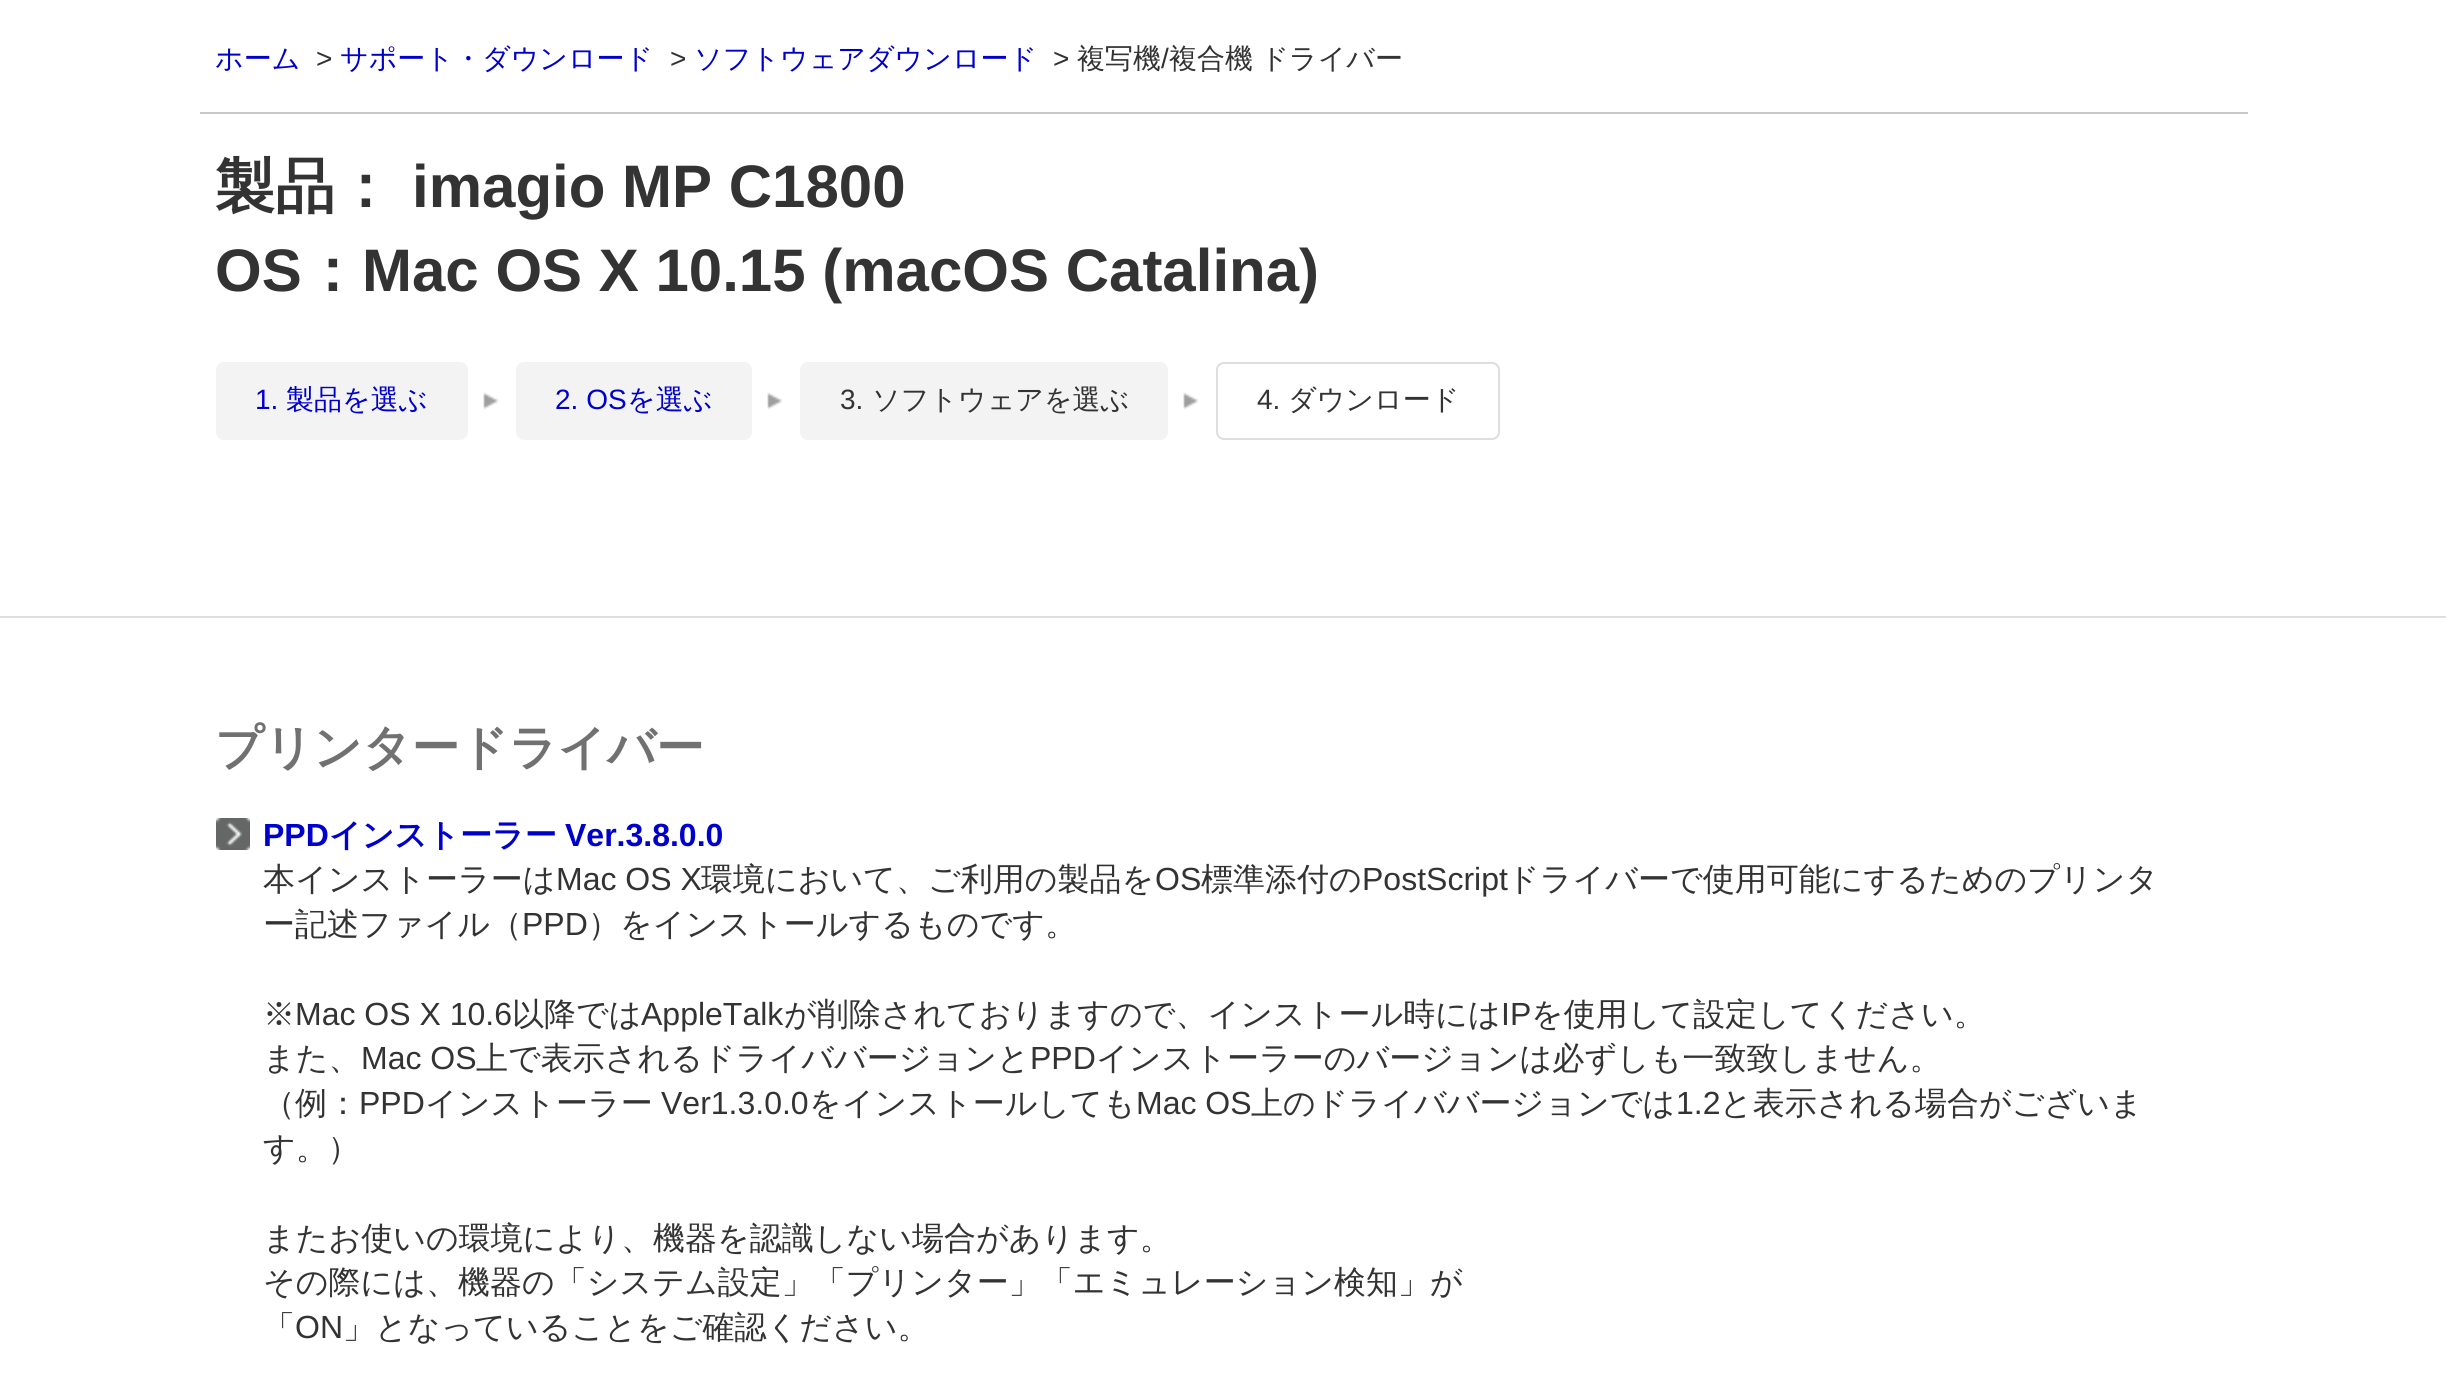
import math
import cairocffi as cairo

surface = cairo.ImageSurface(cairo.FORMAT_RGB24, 2446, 1374)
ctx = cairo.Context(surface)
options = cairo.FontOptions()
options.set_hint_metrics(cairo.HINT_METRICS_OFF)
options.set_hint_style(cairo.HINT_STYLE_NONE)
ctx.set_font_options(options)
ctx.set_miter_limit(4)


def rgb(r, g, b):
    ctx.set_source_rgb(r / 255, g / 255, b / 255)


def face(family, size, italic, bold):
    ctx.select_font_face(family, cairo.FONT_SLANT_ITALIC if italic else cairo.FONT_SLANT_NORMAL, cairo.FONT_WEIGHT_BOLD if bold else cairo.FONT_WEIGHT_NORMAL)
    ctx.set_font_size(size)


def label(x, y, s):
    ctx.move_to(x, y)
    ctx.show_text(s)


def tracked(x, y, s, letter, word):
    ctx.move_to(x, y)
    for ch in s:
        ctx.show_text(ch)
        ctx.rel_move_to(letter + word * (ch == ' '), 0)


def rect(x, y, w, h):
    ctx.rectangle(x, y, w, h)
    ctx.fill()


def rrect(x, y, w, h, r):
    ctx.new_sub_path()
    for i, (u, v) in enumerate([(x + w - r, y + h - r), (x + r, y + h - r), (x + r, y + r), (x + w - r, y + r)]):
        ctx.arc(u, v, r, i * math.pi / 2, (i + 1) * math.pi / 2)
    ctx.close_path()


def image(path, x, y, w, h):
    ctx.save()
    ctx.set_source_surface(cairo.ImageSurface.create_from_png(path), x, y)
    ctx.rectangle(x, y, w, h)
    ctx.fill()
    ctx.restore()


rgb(255, 255, 255)
ctx.paint()
rgb(201, 201, 201)
rect(200, 112, 2048, 2)
face('WenQuanYi Zen Hei Medium', 28, 0, 0)
rgb(0, 0, 204)
label(215, 68, 'ホーム')
face('Liberation Sans', 28, 0, 0)
rgb(51, 51, 51)
label(316, 68, '>')
face('WenQuanYi Zen Hei Medium', 28, 0, 0)
rgb(0, 0, 204)
label(340, 68, 'サポート・ダウンロード')
face('Liberation Sans', 28, 0, 0)
rgb(51, 51, 51)
label(670, 68, '>')
face('WenQuanYi Zen Hei Medium', 28, 0, 0)
rgb(0, 0, 204)
label(694, 68, 'ソフトウェアダウンロード')
face('Liberation Sans', 28, 0, 0)
rgb(51, 51, 51)
label(1053, 68, '>')
face('WenQuanYi Zen Hei Medium', 28, 0, 0)
label(1077, 68, '複写機')
face('Liberation Sans', 28, 0, 0)
label(1161, 68, '/')
face('WenQuanYi Zen Hei Medium', 28, 0, 0)
tracked(1169, 68, '複合機 ドライバー', 0, -1)
face('WenQuanYi Zen Hei', 60, 0, 1)
label(215, 207, '製品：')
face('Liberation Sans', 60, 0, 1)
label(412, 207, 'imagio MP C1800')
label(215, 291, 'OS')
face('WenQuanYi Zen Hei', 60, 0, 1)
label(302, 291, '：')
face('Liberation Sans', 60, 0, 1)
label(362, 291, 'Mac OS X 10.15 (macOS Catalina)')
rgb(222, 222, 222)
rect(0, 616, 2446, 2)
image('image0.png', 483, 392, 16, 18)
rgb(243, 243, 243)
rrect(217, 363, 250, 76, 7)
ctx.fill_preserve()
ctx.stroke()
face('Liberation Sans', 28, 0, 0)
rgb(0, 0, 204)
label(255, 409, '1.')
face('WenQuanYi Zen Hei Medium', 28, 0, 0)
label(286, 409, '製品を選ぶ')
image('image0.png', 767, 392, 16, 18)
rgb(243, 243, 243)
rrect(517, 363, 234, 76, 7)
ctx.fill_preserve()
ctx.stroke()
face('Liberation Sans', 28, 0, 0)
rgb(0, 0, 204)
label(555, 409, '2. OS')
face('WenQuanYi Zen Hei Medium', 28, 0, 0)
label(627, 409, 'を選ぶ')
image('image0.png', 1183, 392, 16, 18)
rgb(243, 243, 243)
rrect(801, 363, 366, 76, 7)
ctx.fill_preserve()
ctx.stroke()
face('Liberation Sans', 28, 0, 0)
rgb(51, 51, 51)
label(840, 409, '3.')
face('WenQuanYi Zen Hei Medium', 28, 0, 0)
label(872, 409, 'ソフトウェアを選ぶ')
rrect(1217, 363, 282, 76, 7)
rgb(222, 222, 222)
ctx.stroke()
face('Liberation Sans', 28, 0, 0)
rgb(51, 51, 51)
label(1257, 409, '4.')
face('WenQuanYi Zen Hei Medium', 28, 0, 0)
label(1288, 409, 'ダウンロード')
face('WenQuanYi Zen Hei', 48, 0, 1)
rgb(113, 113, 113)
label(215, 764, 'プリンタードライバー')
image('image1.png', 216, 818, 34, 32)
face('Liberation Sans', 32, 0, 1)
rgb(0, 0, 204)
label(263, 846, 'PPD')
face('WenQuanYi Zen Hei', 32, 0, 1)
label(329, 846, 'インストーラー')
face('Liberation Sans', 32, 0, 1)
label(565, 846, 'Ver.3.8.0.0')
face('WenQuanYi Zen Hei Medium', 32, 0, 0)
rgb(51, 51, 51)
label(263, 890, '本インストーラーは')
face('Liberation Sans', 32, 0, 0)
label(556, 890, 'Mac OS X')
face('WenQuanYi Zen Hei Medium', 32, 0, 0)
label(701, 890, '環境において、ご利用の製品を')
face('Liberation Sans', 32, 0, 0)
label(1155, 890, 'OS')
face('WenQuanYi Zen Hei Medium', 32, 0, 0)
label(1201, 890, '標準添付の')
face('Liberation Sans', 32, 0, 0)
label(1362, 890, 'PostScript')
face('WenQuanYi Zen Hei Medium', 32, 0, 0)
label(1507, 890, 'ドライバーで使用可能にするためのプリンタ')
label(263, 935, 'ー記述ファイル（')
face('Liberation Sans', 32, 0, 0)
label(522, 935, 'PPD')
face('WenQuanYi Zen Hei Medium', 32, 0, 0)
label(588, 935, '）をインストールするものです。')
label(263, 1025, '※')
face('Liberation Sans', 32, 0, 0)
label(295, 1025, 'Mac OS X 10.6')
face('WenQuanYi Zen Hei Medium', 32, 0, 0)
label(512, 1025, '以降では')
face('Liberation Sans', 32, 0, 0)
label(641, 1025, 'AppleTalk')
face('WenQuanYi Zen Hei Medium', 32, 0, 0)
label(784, 1025, 'が削除されておりますので、インストール時には')
face('Liberation Sans', 32, 0, 0)
label(1501, 1025, 'IP')
face('WenQuanYi Zen Hei Medium', 32, 0, 0)
label(1531, 1025, 'を使用して設定してください。')
label(263, 1069, 'また、')
face('Liberation Sans', 32, 0, 0)
label(361, 1069, 'Mac OS')
face('WenQuanYi Zen Hei Medium', 32, 0, 0)
label(476, 1069, '上で表示されるドライババージョンと')
face('Liberation Sans', 32, 0, 0)
label(1030, 1069, 'PPD')
face('WenQuanYi Zen Hei Medium', 32, 0, 0)
label(1096, 1069, 'インストーラーのバージョンは必ずしも一致致しません。')
label(263, 1114, '（例：')
face('Liberation Sans', 32, 0, 0)
label(359, 1114, 'PPD')
face('WenQuanYi Zen Hei Medium', 32, 0, 0)
label(425, 1114, 'インストーラー')
face('Liberation Sans', 32, 0, 0)
label(661, 1114, 'Ver1.3.0.0')
face('WenQuanYi Zen Hei Medium', 32, 0, 0)
label(809, 1114, 'をインストールしても')
face('Liberation Sans', 32, 0, 0)
label(1136, 1114, 'Mac OS')
face('WenQuanYi Zen Hei Medium', 32, 0, 0)
label(1251, 1114, '上のドライババージョンでは')
face('Liberation Sans', 32, 0, 0)
label(1676, 1114, '1.2')
face('WenQuanYi Zen Hei Medium', 32, 0, 0)
label(1720, 1114, 'と表示される場合がございま')
label(263, 1159, 'す。）')
label(263, 1249, 'またお使いの環境により、機器を認識しない場合があります。')
label(263, 1293, 'その際には、機器の「システム設定」「プリンター」「エミュレーション検知」が')
label(263, 1338, '「')
face('Liberation Sans', 32, 0, 0)
label(295, 1338, 'ON')
face('WenQuanYi Zen Hei Medium', 32, 0, 0)
label(343, 1338, '」となっていることをご確認ください。')
surface.write_to_png('render.png')
